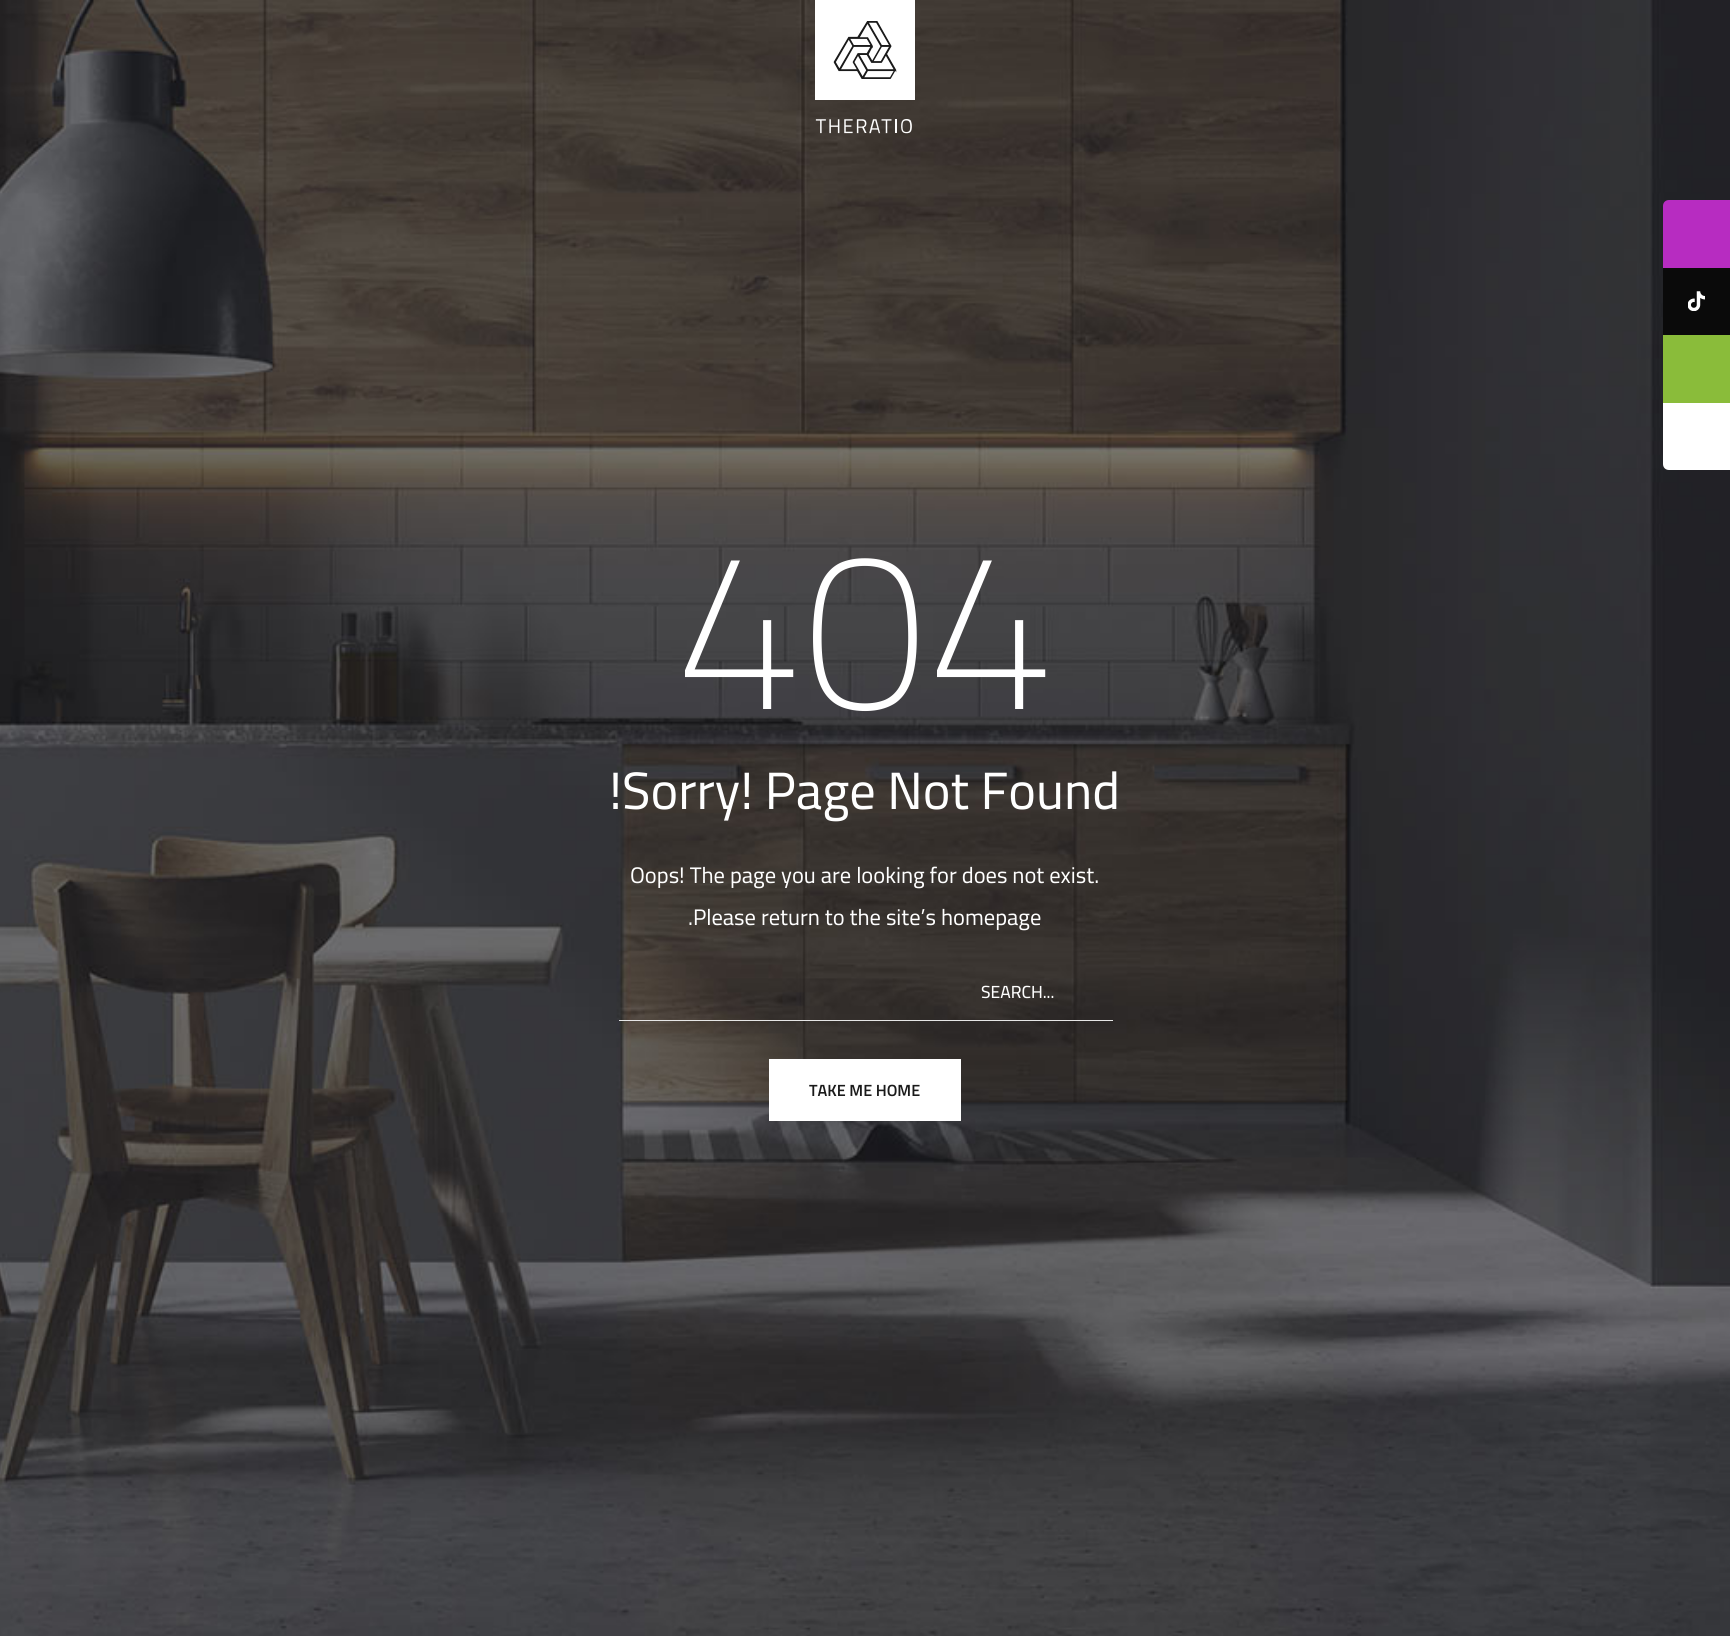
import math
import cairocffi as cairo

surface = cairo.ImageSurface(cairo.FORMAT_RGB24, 1730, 1636)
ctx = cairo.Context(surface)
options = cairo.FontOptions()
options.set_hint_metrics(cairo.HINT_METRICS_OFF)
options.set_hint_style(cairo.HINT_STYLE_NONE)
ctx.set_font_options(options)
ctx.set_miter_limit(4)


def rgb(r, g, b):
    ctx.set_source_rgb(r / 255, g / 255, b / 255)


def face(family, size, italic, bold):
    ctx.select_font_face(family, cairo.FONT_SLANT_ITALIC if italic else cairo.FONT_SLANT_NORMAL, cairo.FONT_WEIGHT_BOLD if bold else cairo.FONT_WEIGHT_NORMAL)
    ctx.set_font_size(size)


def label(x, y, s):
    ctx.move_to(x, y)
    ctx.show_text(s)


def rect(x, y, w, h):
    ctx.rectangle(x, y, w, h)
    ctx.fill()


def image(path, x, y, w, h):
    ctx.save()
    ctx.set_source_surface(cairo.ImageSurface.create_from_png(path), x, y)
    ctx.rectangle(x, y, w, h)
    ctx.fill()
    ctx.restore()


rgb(255, 255, 255)
ctx.paint()
image('image1.png', 0, 0, 1730, 1636)
rgb(183, 44, 193)
ctx.new_path()
ctx.move_to(1669, 200)
ctx.line_to(1730, 200)
ctx.line_to(1730, 268)
ctx.line_to(1663, 268)
ctx.line_to(1663, 206)
ctx.curve_to(1663, 202.5, 1665.5, 200, 1669, 200)
ctx.close_path()
ctx.fill()
rgb(10, 10, 10)
rect(1663, 268, 67, 67)
image('image0.png', 1688, 291, 17, 20)
rgb(138, 188, 58)
rect(1663, 335, 67, 68)
rgb(255, 255, 255)
ctx.new_path()
ctx.move_to(1663, 403)
ctx.line_to(1730, 403)
ctx.line_to(1730, 470)
ctx.line_to(1669, 470)
ctx.curve_to(1665.5, 470, 1663, 467.5, 1663, 464)
ctx.close_path()
ctx.fill()
image('image2.png', 815, 0, 100, 134)
face('Cairo ExtraLight', 225, 0, 0)
label(676, 709, '404')
face('Cairo', 52.5, 0, 0)
label(609, 809, '!Sorry! Page Not Found')
face('Cairo', 22.5, 0, 0)
label(630, 883, 'Oops! The page you are looking for does not exist.')
label(688, 925, '.Please return to the site’s homepage')
rgb(230, 230, 230)
rect(619, 1020, 494, 1)
face('Cairo Medium', 17.5, 0, 0)
rgb(255, 255, 255)
label(981, 998, 'SEARCH...')
rect(769, 1059, 192, 62)
face('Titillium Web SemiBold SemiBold', 16.25, 0, 0)
rgb(26, 26, 26)
label(809, 1096, 'TAKE ME HOME')
surface.write_to_png('render.png')
